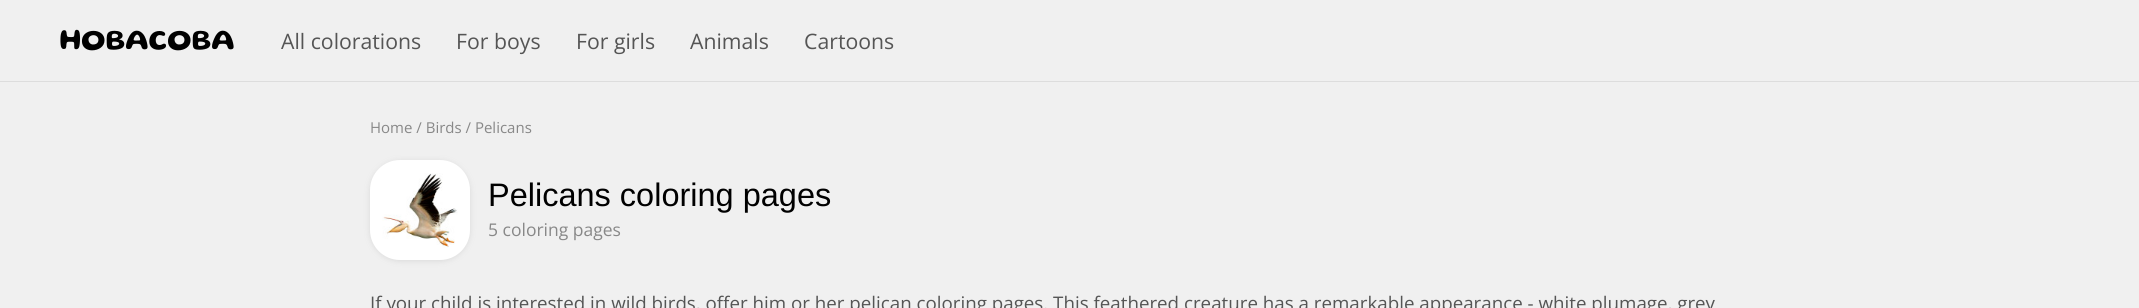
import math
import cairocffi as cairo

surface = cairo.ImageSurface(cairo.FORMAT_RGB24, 2139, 308)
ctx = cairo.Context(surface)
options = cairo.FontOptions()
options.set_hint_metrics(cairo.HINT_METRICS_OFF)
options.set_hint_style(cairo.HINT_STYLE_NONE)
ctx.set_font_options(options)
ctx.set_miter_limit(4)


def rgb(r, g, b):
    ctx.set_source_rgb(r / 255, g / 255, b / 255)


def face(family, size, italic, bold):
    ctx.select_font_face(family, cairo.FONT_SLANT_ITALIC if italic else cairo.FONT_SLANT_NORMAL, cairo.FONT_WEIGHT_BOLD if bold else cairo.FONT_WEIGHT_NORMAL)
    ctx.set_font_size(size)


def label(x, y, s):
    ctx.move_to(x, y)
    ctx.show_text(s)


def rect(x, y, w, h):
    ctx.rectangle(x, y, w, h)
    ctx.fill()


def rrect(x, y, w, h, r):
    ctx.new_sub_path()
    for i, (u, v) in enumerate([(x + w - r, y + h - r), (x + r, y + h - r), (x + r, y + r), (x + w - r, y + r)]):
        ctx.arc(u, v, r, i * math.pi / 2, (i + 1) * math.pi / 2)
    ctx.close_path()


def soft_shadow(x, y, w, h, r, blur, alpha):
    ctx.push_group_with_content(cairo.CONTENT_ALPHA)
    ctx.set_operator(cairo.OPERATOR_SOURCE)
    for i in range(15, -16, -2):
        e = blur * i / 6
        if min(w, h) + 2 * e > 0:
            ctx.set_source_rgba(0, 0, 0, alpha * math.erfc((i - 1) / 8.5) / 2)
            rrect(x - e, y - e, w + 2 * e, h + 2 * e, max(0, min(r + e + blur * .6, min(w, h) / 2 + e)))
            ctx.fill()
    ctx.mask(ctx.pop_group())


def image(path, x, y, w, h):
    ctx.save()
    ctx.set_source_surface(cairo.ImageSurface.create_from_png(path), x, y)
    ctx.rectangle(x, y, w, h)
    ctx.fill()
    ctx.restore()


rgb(240, 240, 240)
ctx.paint()
rgb(221, 221, 221)
rect(0, 81, 2139, 1)
image('image0.png', 60, 29, 174, 22)
face('Open Sans', 21.25, 0, 0)
rgb(85, 85, 85)
label(281, 49, 'All colorations')
label(456, 49, 'For boys')
label(576, 49, 'For girls')
label(690, 49, 'Animals')
label(804, 49, 'Cartoons')
face('Open Sans', 15, 0, 0)
rgb(136, 136, 136)
label(370, 133, 'Home / Birds / Pelicans')
rgb(217, 217, 217)
soft_shadow(370, 161, 100, 100, 30, 3, 1)
rgb(255, 255, 255)
rrect(370, 160, 100, 100, 30)
ctx.fill()
image('image1.png', 382, 173, 76, 75)
face('Liberation Sans', 32.5, 0, 0)
rgb(0, 0, 0)
label(488, 206, 'Pelicans coloring pages')
face('Open Sans', 17.5, 0, 0)
rgb(136, 136, 136)
label(488, 236, '5 coloring pages')
face('Open Sans', 18.75, 0, 0)
rgb(85, 85, 85)
label(370, 310, 'If your child is interested in wild birds, offer him or her pelican coloring pages. This feathered creature has a remarkable appearance - white plumage, grey')
surface.write_to_png('render.png')
